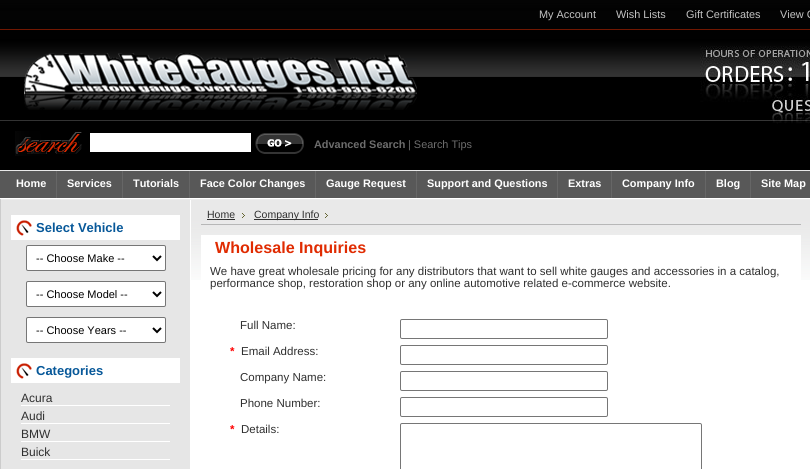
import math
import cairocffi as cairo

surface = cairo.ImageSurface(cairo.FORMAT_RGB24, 810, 469)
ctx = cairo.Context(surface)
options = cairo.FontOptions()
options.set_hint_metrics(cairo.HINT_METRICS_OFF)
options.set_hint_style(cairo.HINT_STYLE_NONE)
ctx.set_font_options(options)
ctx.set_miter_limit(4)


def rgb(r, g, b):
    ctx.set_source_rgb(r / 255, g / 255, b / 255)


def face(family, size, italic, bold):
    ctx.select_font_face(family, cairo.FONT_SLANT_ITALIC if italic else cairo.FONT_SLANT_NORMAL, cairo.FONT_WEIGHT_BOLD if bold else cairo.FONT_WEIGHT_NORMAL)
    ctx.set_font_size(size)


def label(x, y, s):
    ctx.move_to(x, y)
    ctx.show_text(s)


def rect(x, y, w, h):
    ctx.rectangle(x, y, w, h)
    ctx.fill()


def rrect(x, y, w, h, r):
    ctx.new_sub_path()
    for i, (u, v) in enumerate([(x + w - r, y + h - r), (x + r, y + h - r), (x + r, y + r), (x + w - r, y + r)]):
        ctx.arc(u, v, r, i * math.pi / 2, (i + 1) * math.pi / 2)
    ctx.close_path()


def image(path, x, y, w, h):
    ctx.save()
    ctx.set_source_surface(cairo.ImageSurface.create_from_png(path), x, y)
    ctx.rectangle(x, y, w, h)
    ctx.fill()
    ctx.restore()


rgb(255, 255, 255)
ctx.paint()
image('image0.png', 0, 0, 810, 280)
face('Liberation Sans', 10.9, 0, 0)
rgb(196, 196, 196)
label(539, 18, 'My Account')
label(616, 18, 'Wish Lists')
label(686, 18, 'Gift Certificates')
label(780, 18, 'View C')
image('image1.png', 700, 46, 110, 78)
image('image2.png', 24, 53, 393, 57)
image('image3.png', 15, 131, 67, 25)
rgb(255, 255, 255)
rect(90, 133, 161, 19)
image('image4.png', 255, 133, 49, 21)
face('Liberation Sans', 10.9, 0, 1)
rgb(109, 109, 109)
label(314, 148, 'Advanced Search')
face('Liberation Sans', 10.9, 0, 0)
label(408, 148, '| Search Tips')
rgb(102, 102, 102)
rect(56, 171, 1, 27)
face('Liberation Sans', 10.9, 0, 1)
rgb(255, 255, 255)
label(16, 187, 'Home')
rgb(102, 102, 102)
rect(122, 171, 1, 27)
rgb(255, 255, 255)
label(67, 187, 'Services')
rgb(102, 102, 102)
rect(189, 171, 1, 27)
rgb(255, 255, 255)
label(133, 187, 'Tutorials')
rgb(102, 102, 102)
rect(315, 171, 1, 27)
rgb(255, 255, 255)
label(200, 187, 'Face Color Changes')
rgb(102, 102, 102)
rect(416, 171, 1, 27)
rgb(255, 255, 255)
label(326, 187, 'Gauge Request')
rgb(102, 102, 102)
rect(557, 171, 1, 27)
rgb(255, 255, 255)
label(427, 187, 'Support and Questions')
rgb(102, 102, 102)
rect(611, 171, 1, 27)
rgb(255, 255, 255)
label(568, 187, 'Extras')
rgb(102, 102, 102)
rect(705, 171, 1, 27)
rgb(255, 255, 255)
label(622, 187, 'Company Info')
rgb(102, 102, 102)
rect(750, 171, 1, 27)
rgb(255, 255, 255)
label(716, 187, 'Blog')
label(761, 187, 'Site Map')
rgb(204, 204, 204)
rect(0, 199, 1, 270)
rgb(230, 230, 230)
rect(1, 200, 189, 269)
rgb(255, 255, 255)
rect(190, 200, 1, 80)
rect(11, 215, 169, 25)
image('image5.png', 16, 220, 16, 16)
face('Liberation Sans', 13, 0, 1)
rgb(7, 88, 153)
label(36, 232, 'Select Vehicle')
rgb(255, 255, 255)
rrect(26.5, 245.5, 139, 25, 1.5)
ctx.fill_preserve()
rgb(118, 118, 118)
ctx.set_line_width(1)
ctx.stroke()
ctx.new_path()
ctx.move_to(153, 256)
ctx.line_to(157, 260)
ctx.line_to(161, 256)
rgb(0, 0, 0)
ctx.set_line_width(2)
ctx.stroke()
face('Liberation Sans', 11, 0, 0)
label(36, 262, '-- Choose Make --')
rgb(255, 255, 255)
rrect(26.5, 281.5, 139, 25, 1.5)
ctx.fill_preserve()
rgb(118, 118, 118)
ctx.set_line_width(1)
ctx.stroke()
ctx.new_path()
ctx.move_to(153, 292)
ctx.line_to(157, 296)
ctx.line_to(161, 292)
rgb(0, 0, 0)
ctx.set_line_width(2)
ctx.stroke()
label(36, 298, '-- Choose Model --')
rgb(255, 255, 255)
rrect(26.5, 317.5, 139, 25, 1.5)
ctx.fill_preserve()
rgb(118, 118, 118)
ctx.set_line_width(1)
ctx.stroke()
ctx.new_path()
ctx.move_to(153, 328)
ctx.line_to(157, 332)
ctx.line_to(161, 328)
rgb(0, 0, 0)
ctx.set_line_width(2)
ctx.stroke()
label(36, 334, '-- Choose Years --')
rgb(255, 255, 255)
rect(11, 358, 169, 25)
image('image5.png', 16, 363, 16, 16)
face('Liberation Sans', 13, 0, 1)
rgb(7, 88, 153)
label(36, 375, 'Categories')
rgb(255, 255, 255)
rect(21, 405, 149, 1)
face('Liberation Sans', 12, 0, 0)
rgb(47, 47, 47)
label(21, 402, 'Acura')
rgb(255, 255, 255)
rect(21, 423, 149, 1)
rgb(47, 47, 47)
label(21, 420, 'Audi')
rgb(255, 255, 255)
rect(21, 441, 149, 1)
rgb(47, 47, 47)
label(21, 438, 'BMW')
rgb(255, 255, 255)
rect(21, 459, 149, 1)
rgb(47, 47, 47)
label(21, 456, 'Buick')
rgb(183, 183, 183)
rect(201, 224, 600, 1)
face('Liberation Sans', 10.5, 0, 0)
rgb(47, 47, 47)
label(207, 218, 'Home')
rect(207, 219, 28, 1)
image('image6.png', 242, 213, 3, 5)
rect(254, 219, 64, 1)
label(254, 218, 'Company Info')
image('image6.png', 325, 213, 3, 5)
rgb(255, 255, 255)
rect(201, 235, 600, 45)
face('Liberation Sans', 16.1, 0, 1)
rgb(224, 43, 1)
label(215, 253, 'Wholesale Inquiries')
face('Liberation Sans', 11.5, 0, 0)
rgb(47, 47, 47)
label(210, 275, 'We have great wholesale pricing for any distributors that want to sell white gauges and accessories in a catalog,')
label(210, 287, 'performance shop, restoration shop or any online automotive related e-commerce website.')
label(240, 329, 'Full Name:')
rrect(400.5, 319.5, 207, 19, 1.5)
rgb(118, 118, 118)
ctx.set_line_width(1)
ctx.stroke()
face('Liberation Sans', 11.5, 0, 1)
rgb(255, 0, 0)
label(230, 355, '*')
face('Liberation Sans', 11.5, 0, 0)
rgb(47, 47, 47)
label(241, 355, 'Email Address:')
rrect(400.5, 345.5, 207, 19, 1.5)
rgb(118, 118, 118)
ctx.stroke()
rgb(47, 47, 47)
label(240, 381, 'Company Name:')
rrect(400.5, 371.5, 207, 19, 1.5)
rgb(118, 118, 118)
ctx.stroke()
rgb(47, 47, 47)
label(240, 407, 'Phone Number:')
rrect(400.5, 397.5, 207, 19, 1.5)
rgb(118, 118, 118)
ctx.stroke()
face('Liberation Sans', 11.5, 0, 1)
rgb(255, 0, 0)
label(230, 433, '*')
face('Liberation Sans', 11.5, 0, 0)
rgb(47, 47, 47)
label(241, 433, 'Details:')
rrect(400.5, 423.5, 301, 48, 1.5)
rgb(118, 118, 118)
ctx.stroke()
surface.write_to_png('render.png')
